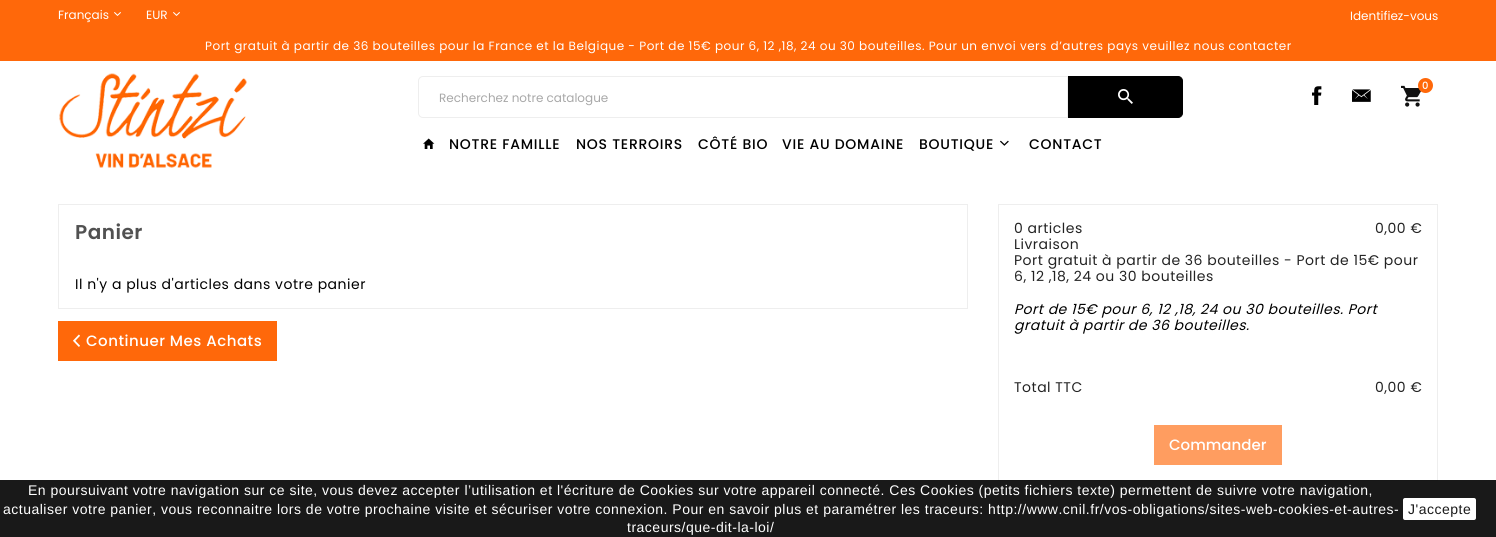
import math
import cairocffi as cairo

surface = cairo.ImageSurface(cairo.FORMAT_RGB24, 1496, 537)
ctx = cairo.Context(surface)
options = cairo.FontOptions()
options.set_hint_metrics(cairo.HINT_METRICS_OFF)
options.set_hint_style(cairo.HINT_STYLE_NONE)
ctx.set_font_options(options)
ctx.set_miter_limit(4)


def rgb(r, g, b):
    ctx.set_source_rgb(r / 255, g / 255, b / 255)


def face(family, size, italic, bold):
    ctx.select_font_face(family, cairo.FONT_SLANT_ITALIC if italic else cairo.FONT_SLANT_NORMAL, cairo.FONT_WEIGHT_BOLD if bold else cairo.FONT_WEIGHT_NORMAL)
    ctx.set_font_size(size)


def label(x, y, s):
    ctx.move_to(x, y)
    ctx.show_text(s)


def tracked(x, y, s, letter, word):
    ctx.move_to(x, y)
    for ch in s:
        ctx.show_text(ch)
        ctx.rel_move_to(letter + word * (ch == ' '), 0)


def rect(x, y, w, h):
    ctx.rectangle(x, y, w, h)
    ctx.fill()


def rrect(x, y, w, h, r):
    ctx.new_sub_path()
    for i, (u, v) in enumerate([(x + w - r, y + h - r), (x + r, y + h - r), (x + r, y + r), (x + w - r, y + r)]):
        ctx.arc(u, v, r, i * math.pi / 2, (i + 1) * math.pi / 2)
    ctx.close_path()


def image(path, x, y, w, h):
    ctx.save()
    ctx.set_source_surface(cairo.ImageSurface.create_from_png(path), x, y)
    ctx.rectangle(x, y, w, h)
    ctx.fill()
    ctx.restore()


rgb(255, 255, 255)
ctx.paint()
rgb(255, 104, 10)
rect(0, 0, 1496, 61)
face('Poppins', 12, 0, 0)
rgb(255, 255, 255)
label(58, 19, 'Français')
image('image0.png', 114, 12, 7, 4)
label(146, 19, 'EUR')
image('image0.png', 173, 12, 7, 4)
label(1350, 20, 'Identifiez-vous')
tracked(205, 50, 'Port gratuit à partir de 36 bouteilles pour la France et la Belgique - Port de 15€ pour 6, 12 ,18, 24 ou 30 bouteilles. Pour un envoi vers d’autres pays veuillez nous contacter', 0.5, 0)
image('image1.png', 59, 73, 188, 95)
image('image2.png', 1401, 85, 20, 22)
rgb(255, 104, 10)
ctx.arc(1425.5, 85.5, 7.5, 0, 2 * math.pi)
ctx.fill()
face('Poppins Medium', 10, 0, 0)
rgb(255, 255, 255)
tracked(1422, 89, '0', 0.5, 0)
image('image3.png', 1312, 86, 10, 19)
image('image4.png', 1352, 89, 19, 13)
ctx.new_path()
ctx.move_to(423, 76.5)
ctx.line_to(1067.5, 76.5)
ctx.line_to(1067.5, 117.5)
ctx.line_to(423, 117.5)
ctx.curve_to(420.5, 117.5, 418.5, 115.5, 418.5, 113)
ctx.line_to(418.5, 81)
ctx.curve_to(418.5, 78.5, 420.5, 76.5, 423, 76.5)
ctx.close_path()
rgb(238, 238, 238)
ctx.set_line_width(1)
ctx.stroke()
face('Poppins', 12, 0, 0)
rgb(168, 168, 168)
label(439, 102, 'Recherchez notre catalogue')
rgb(0, 0, 0)
ctx.new_path()
ctx.move_to(1068.5, 76.5)
ctx.line_to(1178, 76.5)
ctx.curve_to(1180.5, 76.5, 1182.5, 78.5, 1182.5, 81)
ctx.line_to(1182.5, 113)
ctx.curve_to(1182.5, 115.5, 1180.5, 117.5, 1178, 117.5)
ctx.line_to(1068.5, 117.5)
ctx.close_path()
ctx.fill_preserve()
ctx.stroke()
image('image5.png', 1118, 89, 15, 15)
image('image6.png', 423, 138, 12, 11)
face('Poppins Medium', 14, 0, 0)
tracked(449, 149, 'NOTRE FAMILLE', 0.75, 0)
tracked(576, 149, 'NOS TERROIRS', 0.75, 0)
tracked(698, 149, 'CÔTÉ BIO', 0.75, 0)
tracked(782, 149, 'VIE AU DOMAINE', 0.75, 0)
tracked(919, 149, 'BOUTIQUE', 0.75, 0)
image('image7.png', 1000, 140, 9, 6)
tracked(1029, 149, 'CONTACT', 0.75, 0)
ctx.rectangle(58.5, 204.5, 909, 104)
rgb(238, 238, 238)
ctx.stroke()
face('Poppins SemiBold', 20, 0, 0)
rgb(81, 81, 81)
tracked(75, 239, 'Panier', 0.5, 0)
face('Poppins', 14, 0, 0)
rgb(0, 0, 0)
tracked(75, 289, 'Il n\'y a plus d\'articles dans votre panier', 0.5, 0)
rgb(255, 104, 10)
rect(58, 321, 219, 40)
image('image8.png', 73, 334, 7, 13)
face('Poppins Medium', 15, 0, 0)
rgb(255, 255, 255)
tracked(86, 346, 'Continuer Mes Achats', 0.5, 0)
ctx.rectangle(998.5, 204.5, 439, 276)
rgb(238, 238, 238)
ctx.stroke()
face('Poppins', 14, 0, 0)
rgb(35, 35, 35)
tracked(1014, 233, '0 articles', 0.5, 0)
tracked(1375, 233, '0,00 €', 0.5, 0)
tracked(1014, 249, 'Livraison', 0.5, 0)
tracked(1014, 265, 'Port gratuit à partir de 36 bouteilles - Port de 15€ pour', 0.5, 0)
tracked(1014, 281, '6, 12 ,18, 24 ou 30 bouteilles', 0.5, 0)
face('Poppins', 14, 1, 0)
rgb(0, 0, 0)
tracked(1014, 314, 'Port de 15€ pour 6, 12 ,18, 24 ou 30 bouteilles. Port', 0.5, 0)
tracked(1014, 330, 'gratuit à partir de 36 bouteilles.', 0.5, 0)
face('Poppins', 14, 0, 0)
rgb(35, 35, 35)
tracked(1014, 392, 'Total TTC', 0.5, 0)
tracked(1375, 392, '0,00 €', 0.5, 0)
rgb(255, 157, 96)
rect(1154, 425, 128, 40)
face('Poppins Medium', 15, 0, 0)
rgb(255, 255, 255)
label(1169, 450, 'Commander')
ctx.set_source_rgba(0, 0, 0, 0.9)
rect(0, 480, 1496, 57)
face('Liberation Sans', 14, 0, 0)
rgb(255, 255, 255)
tracked(28, 495, 'En poursuivant votre navigation sur ce site, vous devez accepter l’utilisation et l\'écriture de Cookies sur votre appareil connecté. Ces Cookies (petits fichiers texte) permettent de suivre votre navigation,', 0.5, 0)
tracked(3, 514, 'actualiser votre panier, vous reconnaitre lors de votre prochaine visite et sécuriser votre connexion. Pour en savoir plus et paramétrer les traceurs: http://www.cnil.fr/vos-obligations/sites-web-cookies-et-autres-', 0.5, 0)
tracked(627, 532, 'traceurs/que-dit-la-loi/', 0.5, 0)
rrect(1403, 498, 73, 22, 2)
ctx.fill()
rgb(26, 26, 26)
tracked(1408, 514, 'J\'accepte', 0.5, 0)
surface.write_to_png('render.png')
